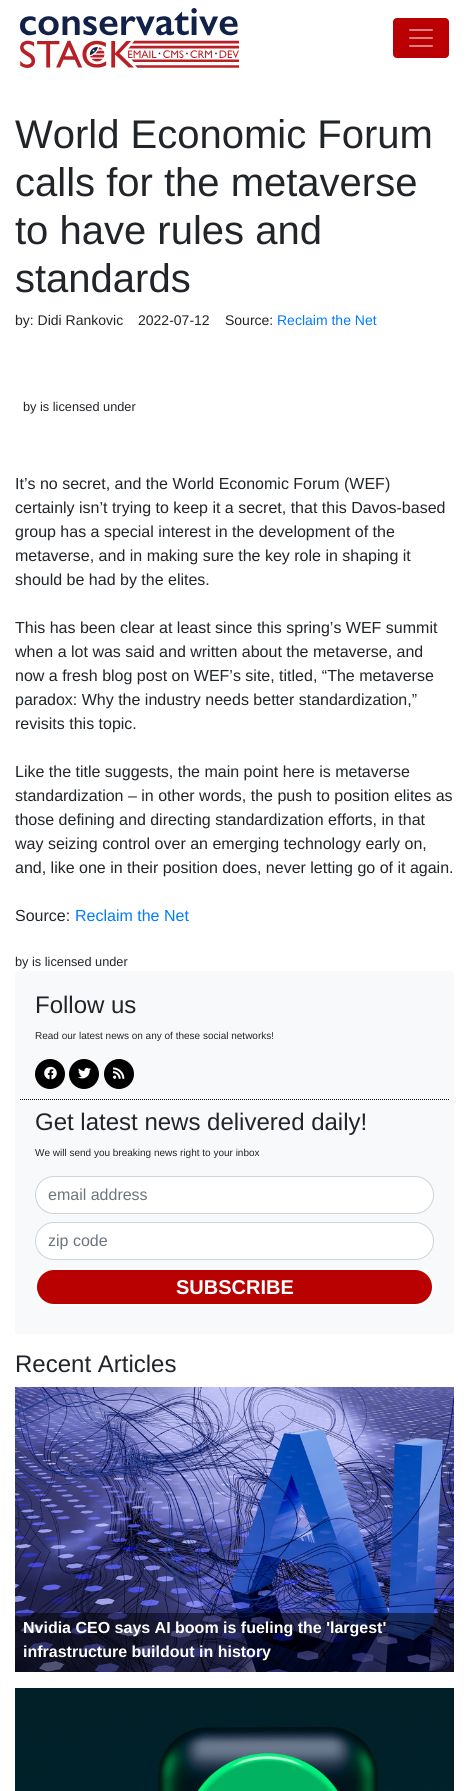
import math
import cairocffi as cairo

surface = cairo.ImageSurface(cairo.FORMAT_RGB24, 469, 1791)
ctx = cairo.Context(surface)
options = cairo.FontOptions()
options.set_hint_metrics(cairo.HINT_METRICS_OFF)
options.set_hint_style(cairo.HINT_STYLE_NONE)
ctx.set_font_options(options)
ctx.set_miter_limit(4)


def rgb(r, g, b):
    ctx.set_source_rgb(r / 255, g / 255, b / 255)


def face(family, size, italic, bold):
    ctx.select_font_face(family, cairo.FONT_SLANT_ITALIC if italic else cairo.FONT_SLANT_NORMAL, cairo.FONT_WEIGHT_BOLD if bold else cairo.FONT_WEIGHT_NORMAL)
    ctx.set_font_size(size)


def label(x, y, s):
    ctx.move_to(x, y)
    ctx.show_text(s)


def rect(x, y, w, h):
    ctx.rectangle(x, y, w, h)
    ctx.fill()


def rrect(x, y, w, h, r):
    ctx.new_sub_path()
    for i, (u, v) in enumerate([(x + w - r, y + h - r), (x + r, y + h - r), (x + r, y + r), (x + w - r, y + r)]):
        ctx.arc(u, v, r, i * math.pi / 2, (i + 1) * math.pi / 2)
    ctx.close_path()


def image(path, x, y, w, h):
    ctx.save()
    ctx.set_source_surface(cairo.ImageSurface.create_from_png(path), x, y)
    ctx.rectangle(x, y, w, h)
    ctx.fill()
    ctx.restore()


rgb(255, 255, 255)
ctx.paint()
image('image0.png', 20, 8, 219, 60)
rgb(186, 0, 3)
rrect(393.5, 18.5, 55, 39, 3.5)
ctx.fill_preserve()
ctx.set_line_width(1)
ctx.stroke()
image('image1.png', 409, 29, 24, 18)
face('Liberation Sans', 40, 0, 0)
rgb(33, 37, 41)
label(15, 148, 'World Economic Forum')
label(15, 196, 'calls for the metaverse')
label(15, 244, 'to have rules and')
label(15, 292, 'standards')
face('Liberation Sans', 14, 0, 0)
label(15, 325, 'by: Didi Rankovic')
label(138, 325, '2022-07-12')
label(225, 325, 'Source:')
rgb(0, 123, 255)
label(277, 325, 'Reclaim the Net')
face('Liberation Sans', 12.75, 0, 0)
rgb(33, 37, 41)
label(23, 411, 'by is licensed under')
face('Liberation Sans', 16, 0, 0)
label(15, 489, 'It’s no secret, and the World Economic Forum (WEF)')
label(15, 513, 'certainly isn’t trying to keep it a secret, that this Davos-based')
label(15, 537, 'group has a special interest in the development of the')
label(15, 561, 'metaverse, and in making sure the key role in shaping it')
label(15, 585, 'should be had by the elites.')
label(15, 633, 'This has been clear at least since this spring’s WEF summit')
label(15, 657, 'when a lot was said and written about the metaverse, and')
label(15, 681, 'now a fresh blog post on WEF’s site, titled, “The metaverse')
label(15, 705, 'paradox: Why the industry needs better standardization,”')
label(15, 729, 'revisits this topic.')
label(15, 777, 'Like the title suggests, the main point here is metaverse')
label(15, 801, 'standardization – in other words, the push to position elites as')
label(15, 825, 'those defining and directing standardization efforts, in that')
label(15, 849, 'way seizing control over an emerging technology early on,')
label(15, 873, 'and, like one in their position does, never letting go of it again.')
label(15, 921, 'Source:')
rgb(0, 123, 255)
label(75, 921, 'Reclaim the Net')
face('Liberation Sans', 12.75, 0, 0)
rgb(33, 37, 41)
label(15, 966, 'by is licensed under')
rgb(248, 249, 250)
rrect(15, 971, 439, 363, 4)
ctx.fill()
ctx.new_path()
ctx.move_to(20, 1099.5)
ctx.line_to(449, 1099.5)
rgb(0, 0, 0)
ctx.set_dash([1, 1])
ctx.stroke()
face('Liberation Sans', 24, 0, 0)
rgb(33, 37, 41)
label(35, 1013, 'Follow us')
face('Liberation Sans', 10, 0, 0)
label(35, 1039, 'Read our latest news on any of these social networks!')
rgb(0, 0, 0)
ctx.new_path()
ctx.arc(50, 1074, 15, 0, 2 * math.pi)
ctx.fill()
image('image2.png', 44, 1066, 13, 14)
ctx.arc(84, 1074, 15, 0, 2 * math.pi)
ctx.fill()
image('image3.png', 78, 1067, 13, 12)
ctx.arc(119, 1074, 15, 0, 2 * math.pi)
ctx.fill()
image('image4.png', 113, 1067, 12, 12)
face('Liberation Sans', 24, 0, 0)
rgb(33, 37, 41)
label(35, 1130, 'Get latest news delivered daily!')
face('Liberation Sans', 10, 0, 0)
label(35, 1156, 'We will send you breaking news right to your inbox')
rgb(255, 255, 255)
rrect(35.5, 1176.5, 398, 37, 18.5)
ctx.fill_preserve()
rgb(206, 212, 218)
ctx.set_dash([])
ctx.stroke()
face('Liberation Sans', 16, 0, 0)
rgb(108, 117, 125)
label(48, 1200, 'email address')
rgb(255, 255, 255)
rrect(35.5, 1222.5, 398, 37, 18.5)
ctx.fill_preserve()
rgb(206, 212, 218)
ctx.stroke()
rgb(108, 117, 125)
label(48, 1246, 'zip code')
rgb(185, 1, 1)
rrect(36, 1269, 397, 36, 18)
ctx.fill_preserve()
rgb(255, 255, 255)
ctx.set_line_width(2)
ctx.stroke()
face('Liberation Sans', 20, 0, 1)
label(176, 1294, 'SUBSCRIBE')
face('Liberation Sans', 24, 0, 0)
rgb(33, 37, 41)
label(15, 1372, 'Recent Articles')
image('image5.png', 15, 1387, 439, 285)
ctx.set_source_rgba(0, 0, 0, 0.5)
rect(15, 1613, 439, 59)
face('Liberation Sans', 16, 0, 1)
rgb(255, 255, 255)
label(23, 1633, 'Nvidia CEO says AI boom is fueling the \'largest\'')
label(23, 1657, 'infrastructure buildout in history')
image('image6.png', 15, 1688, 439, 103)
surface.write_to_png('render.png')
